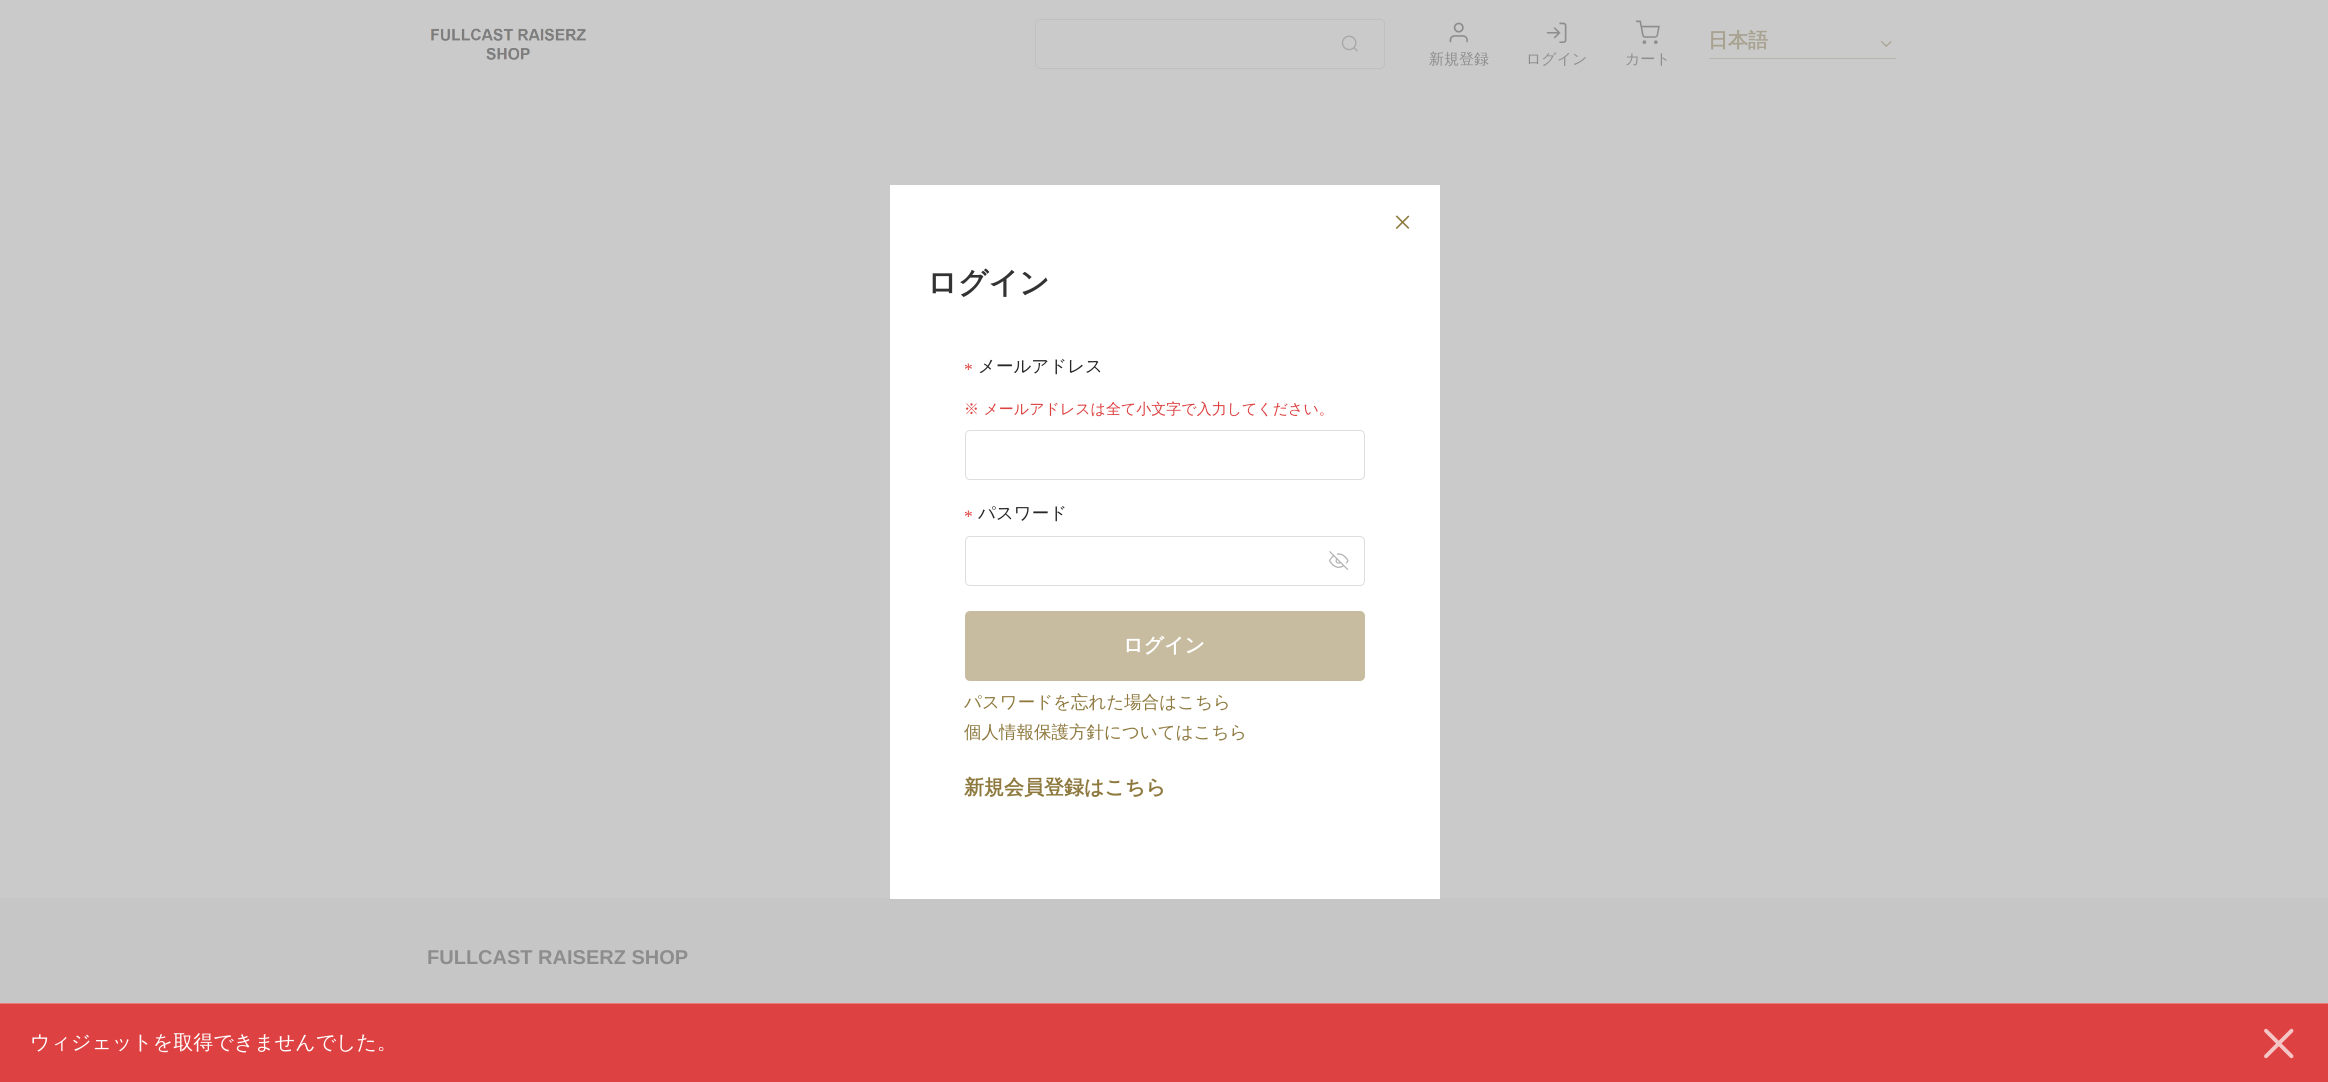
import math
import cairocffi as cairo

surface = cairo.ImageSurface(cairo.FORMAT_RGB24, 2328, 1082)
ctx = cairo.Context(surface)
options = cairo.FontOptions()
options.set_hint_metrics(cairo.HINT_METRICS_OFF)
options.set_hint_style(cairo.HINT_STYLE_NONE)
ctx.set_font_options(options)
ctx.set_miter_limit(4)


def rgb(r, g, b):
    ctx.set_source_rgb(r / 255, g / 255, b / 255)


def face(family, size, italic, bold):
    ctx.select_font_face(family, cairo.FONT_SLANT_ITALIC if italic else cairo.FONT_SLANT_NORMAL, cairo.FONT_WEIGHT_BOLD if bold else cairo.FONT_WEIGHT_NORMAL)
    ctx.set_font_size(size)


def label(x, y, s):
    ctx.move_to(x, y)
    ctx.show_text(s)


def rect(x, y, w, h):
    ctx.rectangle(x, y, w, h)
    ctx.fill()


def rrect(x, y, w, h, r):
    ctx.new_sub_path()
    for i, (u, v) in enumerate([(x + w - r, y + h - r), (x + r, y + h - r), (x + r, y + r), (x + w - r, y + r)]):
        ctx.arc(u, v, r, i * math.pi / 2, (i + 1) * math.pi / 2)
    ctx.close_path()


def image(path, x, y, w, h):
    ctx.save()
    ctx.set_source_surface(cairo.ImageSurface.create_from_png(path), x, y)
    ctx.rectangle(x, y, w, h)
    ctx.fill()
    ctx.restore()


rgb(202, 202, 202)
ctx.paint()
image('image0.png', 431, 28, 155, 32)
rrect(1035.5, 19.5, 349, 49, 4.5)
rgb(192, 192, 192)
ctx.set_line_width(1)
ctx.stroke()
image('image1.png', 1341, 35, 17, 17)
rgb(185, 182, 173)
rect(1709, 58, 187, 1)
face('WenQuanYi Zen Hei', 20, 0, 1)
rgb(168, 162, 144)
label(1708, 47, '日本語')
image('image2.png', 1880, 40, 12, 8)
image('image3.png', 1449, 22, 19, 21)
face('WenQuanYi Zen Hei Medium', 15, 0, 0)
rgb(141, 141, 141)
label(1429, 64, '新規登録')
image('image4.png', 1546, 22, 21, 21)
label(1526, 64, 'ログイン')
image('image5.png', 1636, 20, 24, 25)
label(1625, 64, 'カート')
rgb(198, 198, 198)
rect(0, 898, 2328, 105)
rgb(255, 255, 255)
rect(890, 185, 550, 714)
image('image6.png', 1395, 215, 15, 14)
face('WenQuanYi Zen Hei', 30, 0, 1)
rgb(51, 51, 51)
label(927, 293, 'ログイン')
face('Liberation Serif', 17.5, 0, 0)
rgb(221, 64, 64)
label(964, 375, '*')
face('WenQuanYi Zen Hei Medium', 17.5, 0, 0)
rgb(38, 38, 38)
label(978, 372, 'メールアドレス')
face('WenQuanYi Zen Hei Medium', 15, 0, 0)
rgb(221, 64, 64)
label(964, 414, '※ メールアドレスは全て小文字で入力してください。')
rrect(965.5, 430.5, 399, 49, 4.5)
rgb(221, 221, 221)
ctx.stroke()
face('Liberation Serif', 17.5, 0, 0)
rgb(221, 64, 64)
label(964, 522, '*')
face('WenQuanYi Zen Hei Medium', 17.5, 0, 0)
rgb(38, 38, 38)
label(978, 519, 'パスワード')
rrect(965.5, 536.5, 399, 49, 4.5)
rgb(221, 221, 221)
ctx.stroke()
image('image7.png', 1329, 551, 20, 19)
rgb(199, 188, 159)
rrect(965, 611, 400, 70, 5)
ctx.fill()
face('WenQuanYi Zen Hei', 20, 0, 1)
rgb(255, 255, 255)
label(1123, 652, 'ログイン')
face('WenQuanYi Zen Hei Medium', 17.5, 0, 0)
rgb(142, 121, 62)
label(964, 708, 'パスワードを忘れた場合はこちら')
label(964, 738, '個人情報保護方針についてはこちら')
face('WenQuanYi Zen Hei', 20, 0, 1)
label(964, 794, '新規会員登録はこちら')
face('Liberation Sans', 20, 0, 1)
rgb(141, 141, 141)
label(427, 964, 'FULLCAST RAISERZ SHOP')
rgb(222, 65, 65)
rect(0, 1004, 2328, 78)
rgb(232, 122, 122)
rect(0, 1003, 2328, 1)
face('WenQuanYi Zen Hei Medium', 20, 0, 0)
rgb(255, 255, 255)
label(30, 1049, 'ウィジェットを取得できませんでした。')
rgb(245, 198, 198)
ctx.new_path()
ctx.move_to(2267.5, 1029.5)
ctx.line_to(2293, 1055)
ctx.curve_to(2293.5, 1055.5, 2293.5, 1057, 2293, 1057.5)
ctx.curve_to(2292, 1058.5, 2291, 1058.5, 2290, 1057.5)
ctx.line_to(2264.5, 1032)
ctx.curve_to(2264, 1031.5, 2264, 1030, 2264.5, 1029.5)
ctx.curve_to(2265.5, 1028.5, 2266.5, 1028.5, 2267.5, 1029.5)
ctx.close_path()
ctx.fill()
ctx.new_path()
ctx.move_to(2293, 1032)
ctx.line_to(2267.5, 1057.5)
ctx.curve_to(2266.5, 1058.5, 2265.5, 1058.5, 2264.5, 1057.5)
ctx.curve_to(2264, 1057, 2264, 1055.5, 2264.5, 1055)
ctx.line_to(2290, 1029.5)
ctx.curve_to(2291, 1028.5, 2292, 1028.5, 2293, 1029.5)
ctx.curve_to(2293.5, 1030, 2293.5, 1031.5, 2293, 1032)
ctx.close_path()
ctx.fill()
surface.write_to_png('render.png')
